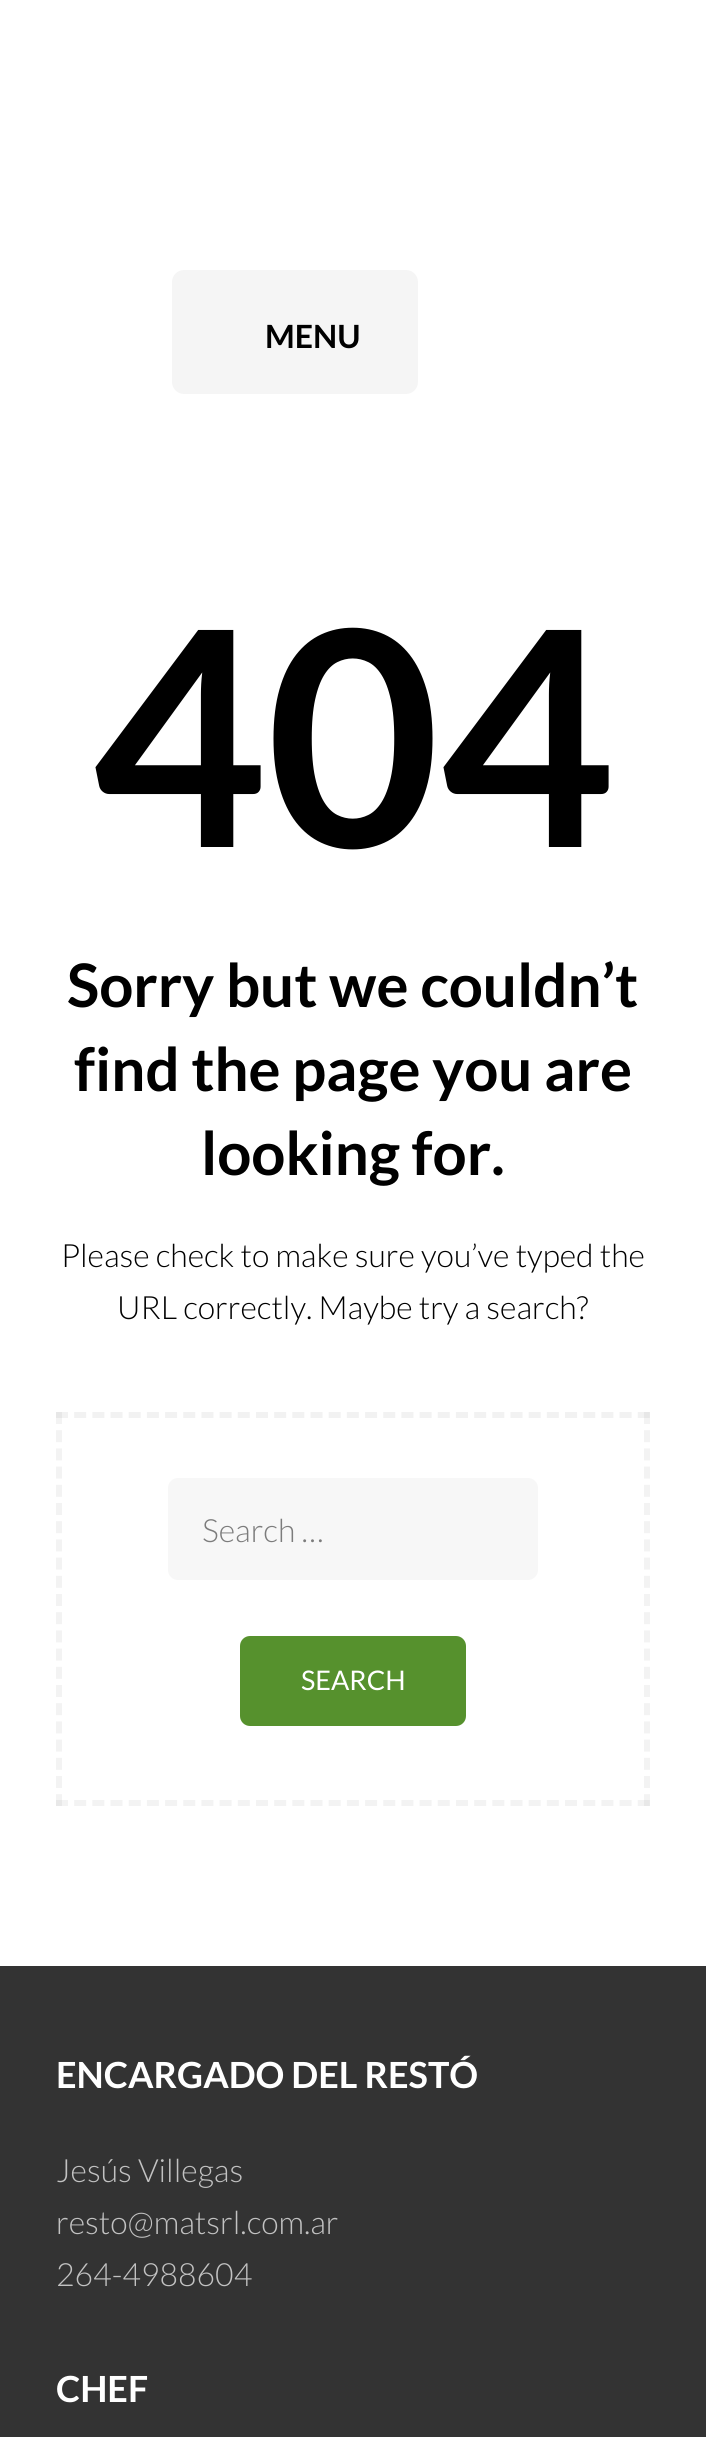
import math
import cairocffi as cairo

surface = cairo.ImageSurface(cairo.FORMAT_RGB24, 706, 2437)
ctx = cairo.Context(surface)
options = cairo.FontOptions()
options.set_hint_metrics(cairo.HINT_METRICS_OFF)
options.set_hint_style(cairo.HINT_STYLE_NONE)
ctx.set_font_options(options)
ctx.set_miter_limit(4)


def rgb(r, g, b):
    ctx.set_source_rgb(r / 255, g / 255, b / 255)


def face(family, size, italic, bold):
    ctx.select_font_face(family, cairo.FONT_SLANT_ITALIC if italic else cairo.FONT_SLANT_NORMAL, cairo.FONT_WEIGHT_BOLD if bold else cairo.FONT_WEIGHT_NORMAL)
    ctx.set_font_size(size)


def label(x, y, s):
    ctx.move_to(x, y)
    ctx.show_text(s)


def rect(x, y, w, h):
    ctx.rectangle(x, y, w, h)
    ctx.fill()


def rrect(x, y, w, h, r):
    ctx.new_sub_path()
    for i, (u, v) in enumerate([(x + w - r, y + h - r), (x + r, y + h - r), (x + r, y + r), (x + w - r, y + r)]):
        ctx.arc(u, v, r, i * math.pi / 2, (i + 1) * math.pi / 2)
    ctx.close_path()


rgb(255, 255, 255)
ctx.paint()
rgb(245, 245, 245)
rrect(172, 270, 246, 124, 12)
ctx.fill()
face('Lato', 32, 0, 1)
rgb(0, 0, 0)
label(265, 348, 'MENU')
face('Lato', 300, 0, 1)
label(92, 847, '404')
face('Lato', 60, 0, 1)
label(67, 1007, 'Sorry but we couldn’t')
label(74, 1091, 'find the page you are')
label(201, 1175, 'looking for.')
face('Lato Light', 32, 0, 0)
label(61, 1267, 'Please check to make sure you’ve typed the')
label(117, 1319, 'URL correctly. Maybe try a search?')
ctx.new_path()
ctx.move_to(56, 1415)
ctx.line_to(650, 1415)
rgb(242, 242, 242)
ctx.set_line_width(6)
ctx.set_dash([12, 6.18])
ctx.stroke()
ctx.new_path()
ctx.move_to(647, 1412)
ctx.line_to(647, 1806)
ctx.set_source_rgba(0, 0, 0, 0.05)
ctx.set_dash([12, 6.2])
ctx.stroke()
ctx.new_path()
ctx.move_to(56, 1803)
ctx.line_to(650, 1803)
ctx.set_dash([12, 6.18])
ctx.stroke()
ctx.new_path()
ctx.move_to(59, 1412)
ctx.line_to(59, 1806)
ctx.set_dash([12, 6.2])
ctx.stroke()
rgb(247, 247, 247)
rrect(168, 1478, 370, 102, 10)
ctx.fill()
rgb(124, 124, 124)
label(202, 1542, 'Search …')
rgb(86, 145, 45)
rrect(240, 1636, 226, 90, 10)
ctx.fill()
face('Lato', 27, 0, 0)
rgb(255, 255, 255)
label(301, 1690, 'SEARCH')
rgb(51, 51, 51)
rect(0, 1966, 706, 471)
face('Lato', 36, 0, 1)
rgb(255, 255, 255)
label(56, 2088, 'ENCARGADO DEL RESTÓ')
face('Lato Light', 32, 0, 0)
rgb(194, 194, 194)
label(56, 2182, 'Jesús Villegas')
label(56, 2234, 'resto@matsrl.com.ar')
label(56, 2286, '264-4988604')
face('Lato', 36, 0, 1)
rgb(255, 255, 255)
label(56, 2402, 'CHEF')
surface.write_to_png('render.png')
